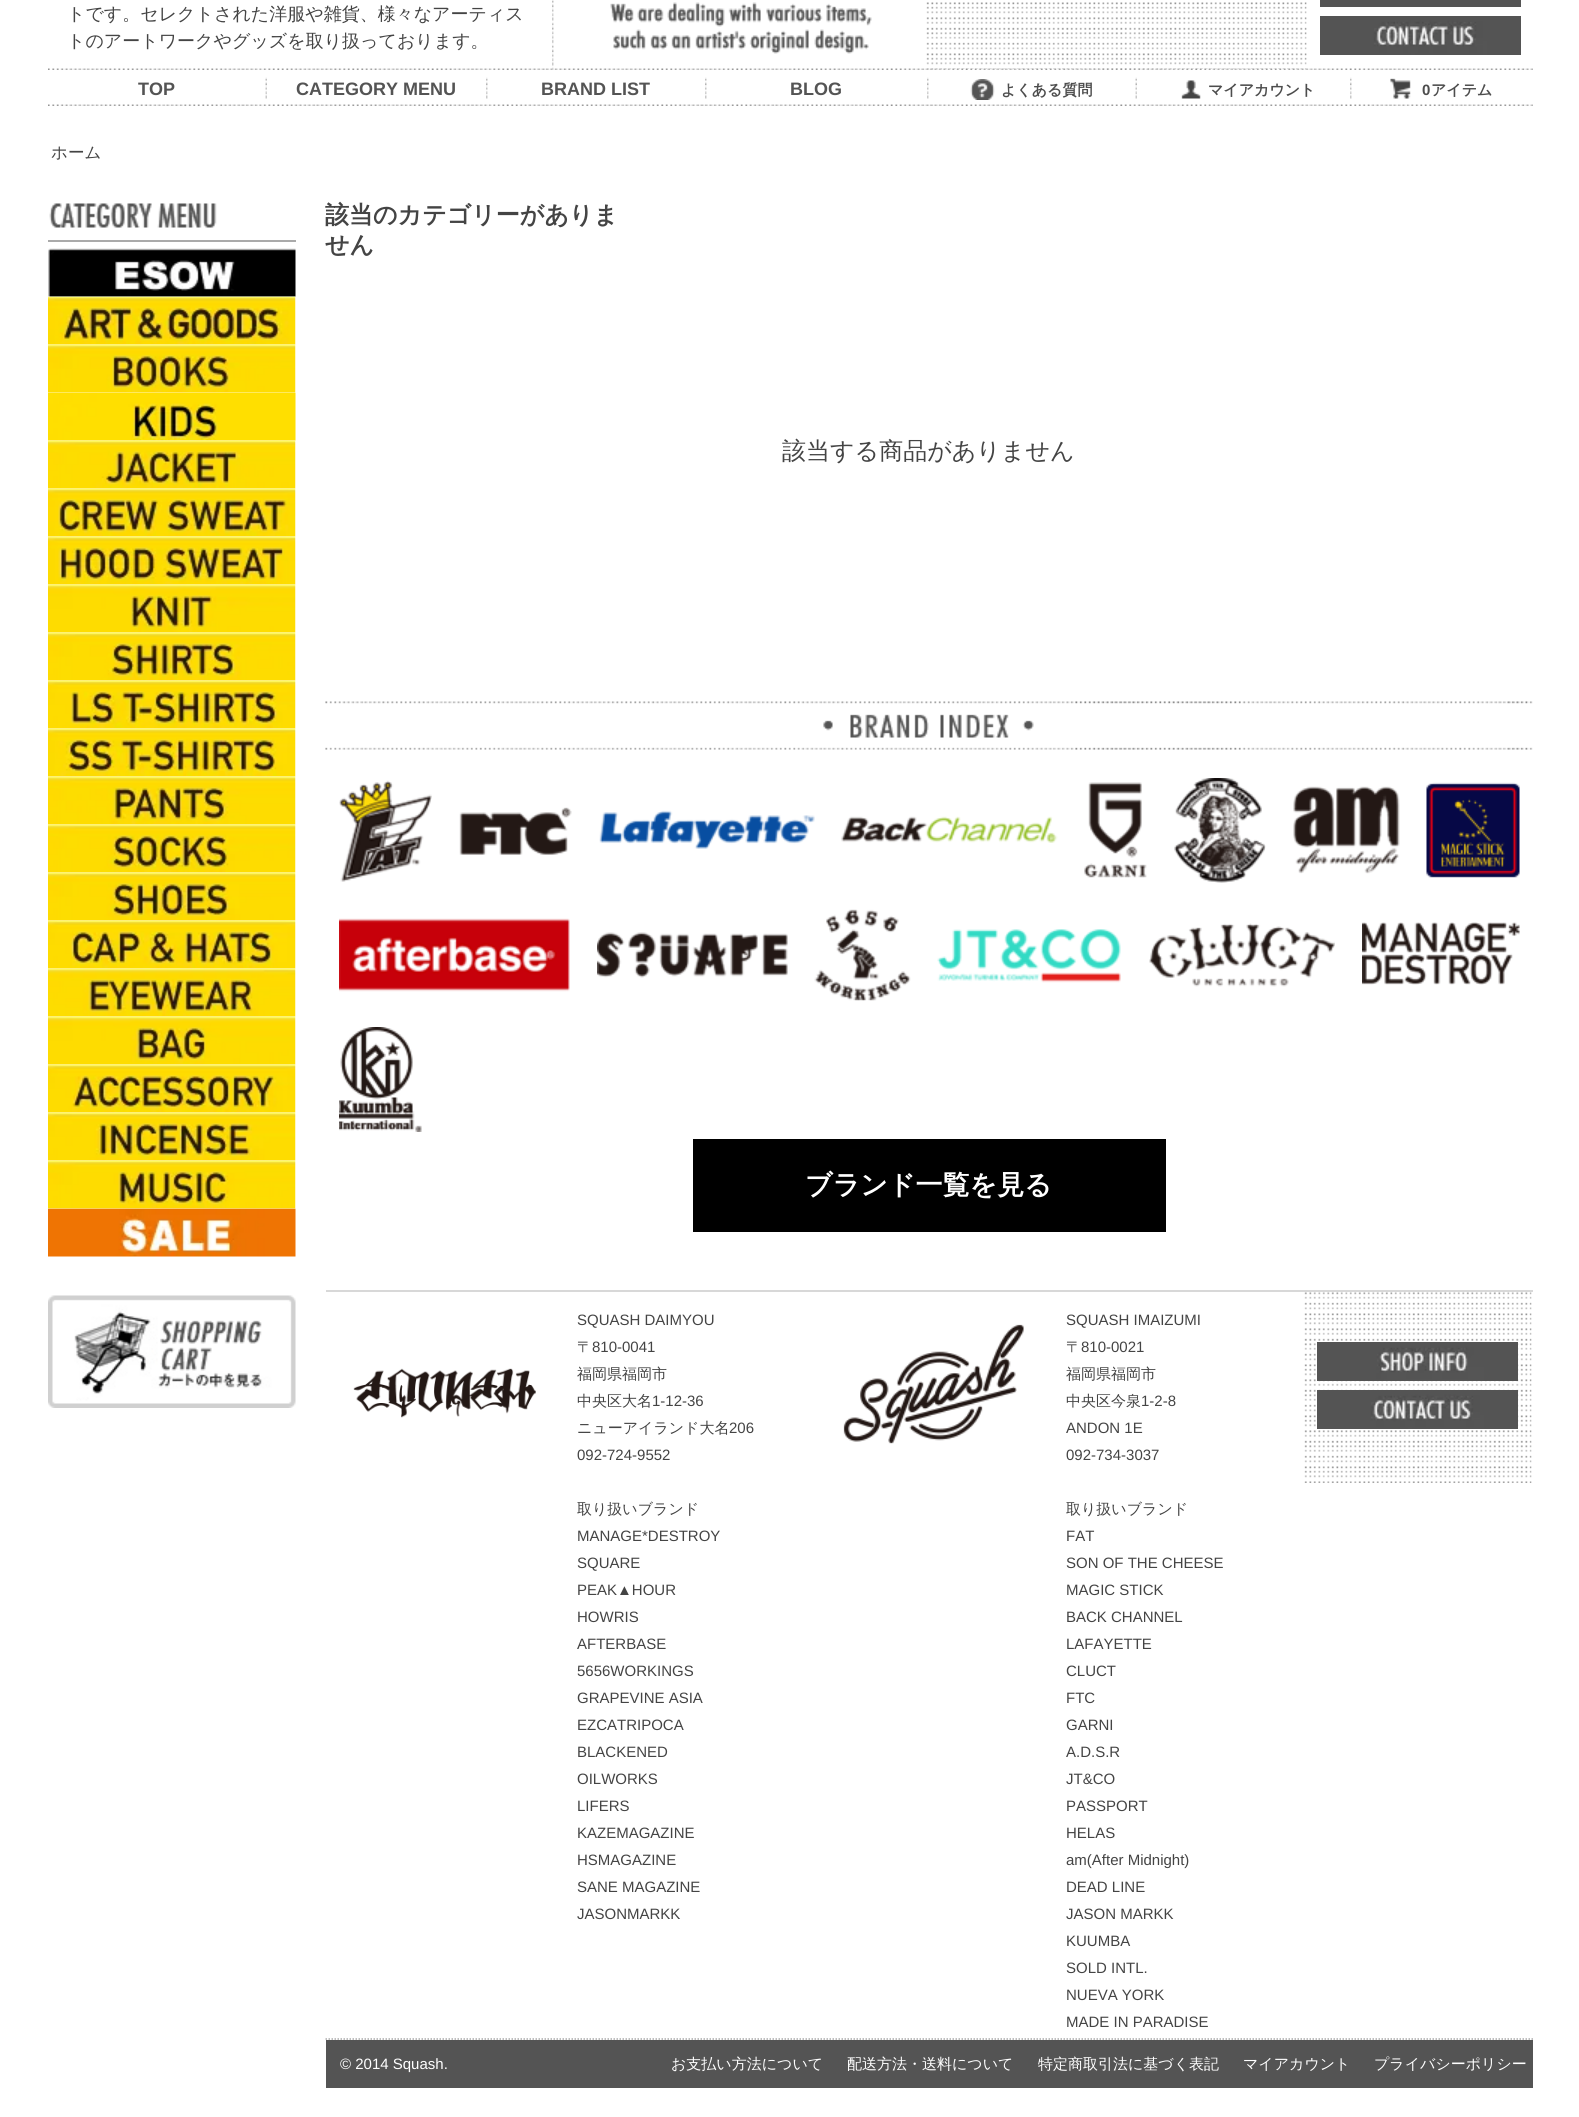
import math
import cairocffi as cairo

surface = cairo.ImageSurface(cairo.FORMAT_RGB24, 1579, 2117)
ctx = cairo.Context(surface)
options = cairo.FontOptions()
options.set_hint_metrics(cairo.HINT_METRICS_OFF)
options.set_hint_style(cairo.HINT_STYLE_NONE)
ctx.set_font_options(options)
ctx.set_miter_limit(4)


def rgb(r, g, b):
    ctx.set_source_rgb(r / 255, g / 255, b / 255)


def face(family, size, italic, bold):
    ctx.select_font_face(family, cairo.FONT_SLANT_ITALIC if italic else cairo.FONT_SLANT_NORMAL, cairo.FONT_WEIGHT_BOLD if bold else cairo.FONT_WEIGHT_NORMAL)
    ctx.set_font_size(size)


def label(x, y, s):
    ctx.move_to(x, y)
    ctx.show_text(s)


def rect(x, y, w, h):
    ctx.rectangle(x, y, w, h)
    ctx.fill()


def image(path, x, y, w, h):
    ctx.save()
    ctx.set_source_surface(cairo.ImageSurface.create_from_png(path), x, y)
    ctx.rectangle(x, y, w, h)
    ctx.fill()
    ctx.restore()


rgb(255, 255, 255)
ctx.paint()
face('WenQuanYi Zen Hei Medium', 18, 0, 0)
rgb(68, 68, 68)
label(67, 20, 'トです。セレクトされた洋服や雑貨、様々なアーティス')
label(67, 47, 'トのアートワークやグッズを取り扱っております。')
image('image0.png', 552, 0, 2, 69)
image('image1.png', 610, 2, 262, 52)
image('image2.png', 926, 2, 381, 67)
rgb(84, 84, 84)
rect(1320, 0, 201, 7)
image('image3.png', 1320, 16, 201, 39)
image('image4.png', 48, 68, 1485, 2)
face('Liberation Sans', 18, 0, 1)
label(138, 95, 'TOP')
image('image5.png', 265, 77, 2, 22)
label(296, 95, 'CATEGORY MENU')
image('image6.png', 486, 77, 2, 22)
label(541, 95, 'BRAND LIST')
image('image6.png', 705, 77, 2, 22)
label(790, 95, 'BLOG')
image('image6.png', 927, 77, 2, 22)
image('image7.png', 970, 79, 25, 21)
face('WenQuanYi Zen Hei', 15, 0, 1)
rgb(77, 77, 77)
label(1001, 95, 'よくある質問')
image('image5.png', 1135, 77, 2, 22)
image('image8.png', 1181, 80, 20, 19)
label(1208, 95, 'マイアカウント')
image('image6.png', 1350, 77, 2, 22)
image('image9.png', 1390, 78, 21, 21)
face('Liberation Sans', 15, 0, 1)
label(1422, 95, '0')
face('WenQuanYi Zen Hei', 15, 0, 1)
label(1431, 95, 'アイテム')
image('image10.png', 48, 104, 1485, 2)
face('WenQuanYi Zen Hei Medium', 16.5, 0, 0)
rgb(68, 68, 68)
label(51, 158, 'ホーム')
rgb(170, 170, 170)
rect(48, 240, 248, 2)
image('image11.png', 49, 203, 168, 25)
image('image12.png', 48, 248, 248, 49)
image('image13.png', 48, 296, 248, 49)
image('image14.png', 48, 344, 248, 49)
image('image15.png', 48, 392, 248, 49)
image('image16.png', 48, 440, 248, 49)
image('image17.png', 48, 488, 248, 49)
image('image18.png', 48, 536, 248, 49)
image('image19.png', 48, 584, 248, 49)
image('image20.png', 48, 632, 248, 49)
image('image21.png', 48, 680, 248, 49)
image('image22.png', 48, 728, 248, 49)
image('image23.png', 48, 776, 248, 49)
image('image24.png', 48, 824, 248, 49)
image('image25.png', 48, 872, 248, 49)
image('image26.png', 48, 920, 248, 49)
image('image27.png', 48, 968, 248, 49)
image('image28.png', 48, 1016, 248, 49)
image('image29.png', 48, 1064, 248, 49)
image('image30.png', 48, 1112, 248, 49)
image('image31.png', 48, 1160, 248, 49)
image('image32.png', 48, 1208, 248, 49)
image('image33.png', 48, 1295, 248, 113)
face('WenQuanYi Zen Hei', 24, 0, 1)
rgb(68, 68, 68)
label(325, 223, '該当のカテゴリーがありま')
label(325, 253, 'せん')
face('WenQuanYi Zen Hei Medium', 24, 0, 0)
label(782, 459, '該当する商品がありません')
image('image34.png', 325, 701, 1208, 49)
image('image35.png', 339, 780, 93, 102)
image('image36.png', 459, 807, 113, 48)
image('image37.png', 599, 810, 216, 39)
image('image38.png', 841, 816, 217, 27)
image('image39.png', 1084, 782, 63, 96)
image('image40.png', 1174, 778, 92, 105)
image('image41.png', 1293, 786, 107, 88)
image('image42.png', 1426, 782, 94, 96)
image('image43.png', 339, 918, 231, 74)
image('image44.png', 597, 932, 191, 46)
image('image45.png', 814, 909, 97, 92)
image('image46.png', 937, 929, 184, 54)
image('image47.png', 1149, 923, 186, 64)
image('image48.png', 1362, 922, 158, 63)
image('image49.png', 339, 1027, 83, 105)
rgb(0, 0, 0)
rect(693, 1139, 473, 93)
face('WenQuanYi Zen Hei', 27, 0, 1)
rgb(255, 255, 255)
label(805, 1194, 'ブランド一覧を見る')
rgb(216, 216, 216)
rect(326, 1290, 1207, 2)
ctx.new_path()
ctx.move_to(325.5, 2039)
ctx.line_to(1533, 2039)
rgb(170, 170, 170)
ctx.set_line_width(1.5)
ctx.set_dash([1.5, 1.5])
ctx.stroke()
image('image50.png', 353, 1368, 183, 50)
face('Liberation Sans', 15, 0, 0)
rgb(68, 68, 68)
label(577, 1325, 'SQUASH DAIMYOU')
face('WenQuanYi Zen Hei Medium', 15, 0, 0)
label(577, 1352, '〒')
face('Liberation Sans', 15, 0, 0)
label(592, 1352, '810-0041')
face('WenQuanYi Zen Hei Medium', 15, 0, 0)
label(577, 1379, '福岡県福岡市')
label(577, 1406, '中央区大名')
face('Liberation Sans', 15, 0, 0)
label(652, 1406, '1-12-36')
face('WenQuanYi Zen Hei Medium', 15, 0, 0)
label(577, 1433, 'ニューアイランド大名')
face('Liberation Sans', 15, 0, 0)
label(729, 1433, '206')
label(577, 1460, '092-724-9552')
face('WenQuanYi Zen Hei Medium', 15, 0, 0)
label(577, 1514, '取り扱いブランド')
face('Liberation Sans', 15, 0, 0)
label(577, 1541, 'MANAGE*DESTROY')
label(577, 1568, 'SQUARE')
label(577, 1595, 'PEAK▲HOUR')
label(577, 1622, 'HOWRIS')
label(577, 1649, 'AFTERBASE')
label(577, 1676, '5656WORKINGS')
label(577, 1703, 'GRAPEVINE ASIA')
label(577, 1730, 'EZCATRIPOCA')
label(577, 1757, 'BLACKENED')
label(577, 1784, 'OILWORKS')
label(577, 1811, 'LIFERS')
label(577, 1838, 'KAZEMAGAZINE')
label(577, 1865, 'HSMAGAZINE')
label(577, 1892, 'SANE MAGAZINE')
label(577, 1919, 'JASONMARKK')
image('image51.png', 843, 1324, 181, 120)
label(1066, 1325, 'SQUASH IMAIZUMI')
face('WenQuanYi Zen Hei Medium', 15, 0, 0)
label(1066, 1352, '〒')
face('Liberation Sans', 15, 0, 0)
label(1081, 1352, '810-0021')
face('WenQuanYi Zen Hei Medium', 15, 0, 0)
label(1066, 1379, '福岡県福岡市')
label(1066, 1406, '中央区今泉')
face('Liberation Sans', 15, 0, 0)
label(1141, 1406, '1-2-8')
label(1066, 1433, 'ANDON 1E')
label(1066, 1460, '092-734-3037')
face('WenQuanYi Zen Hei Medium', 15, 0, 0)
label(1066, 1514, '取り扱いブランド')
face('Liberation Sans', 15, 0, 0)
label(1066, 1541, 'FAT')
label(1066, 1568, 'SON OF THE CHEESE')
label(1066, 1595, 'MAGIC STICK')
label(1066, 1622, 'BACK CHANNEL')
label(1066, 1649, 'LAFAYETTE')
label(1066, 1676, 'CLUCT')
label(1066, 1703, 'FTC')
label(1066, 1730, 'GARNI')
label(1066, 1757, 'A.D.S.R')
label(1066, 1784, 'JT&CO')
label(1066, 1811, 'PASSPORT')
label(1066, 1838, 'HELAS')
label(1066, 1865, 'am(After Midnight)')
label(1066, 1892, 'DEAD LINE')
label(1066, 1919, 'JASON MARKK')
label(1066, 1946, 'KUUMBA')
label(1066, 1973, 'SOLD INTL.')
label(1066, 2000, 'NUEVA YORK')
label(1066, 2027, 'MADE IN PARADISE')
image('image52.png', 1304, 1292, 228, 191)
image('image53.png', 1317, 1342, 201, 39)
image('image54.png', 1317, 1390, 201, 39)
rgb(84, 84, 84)
rect(326, 2040, 1207, 48)
rgb(255, 255, 255)
label(340, 2069, '© 2014 Squash.')
face('WenQuanYi Zen Hei Medium', 15, 0, 0)
label(671, 2069, 'お支払い方法について')
label(847, 2069, '配送方法・送料について')
label(1038, 2069, '特定商取引法に基づく表記')
label(1243, 2069, 'マイアカウント')
label(1374, 2069, 'プライバシーポリシー')
surface.write_to_png('render.png')
